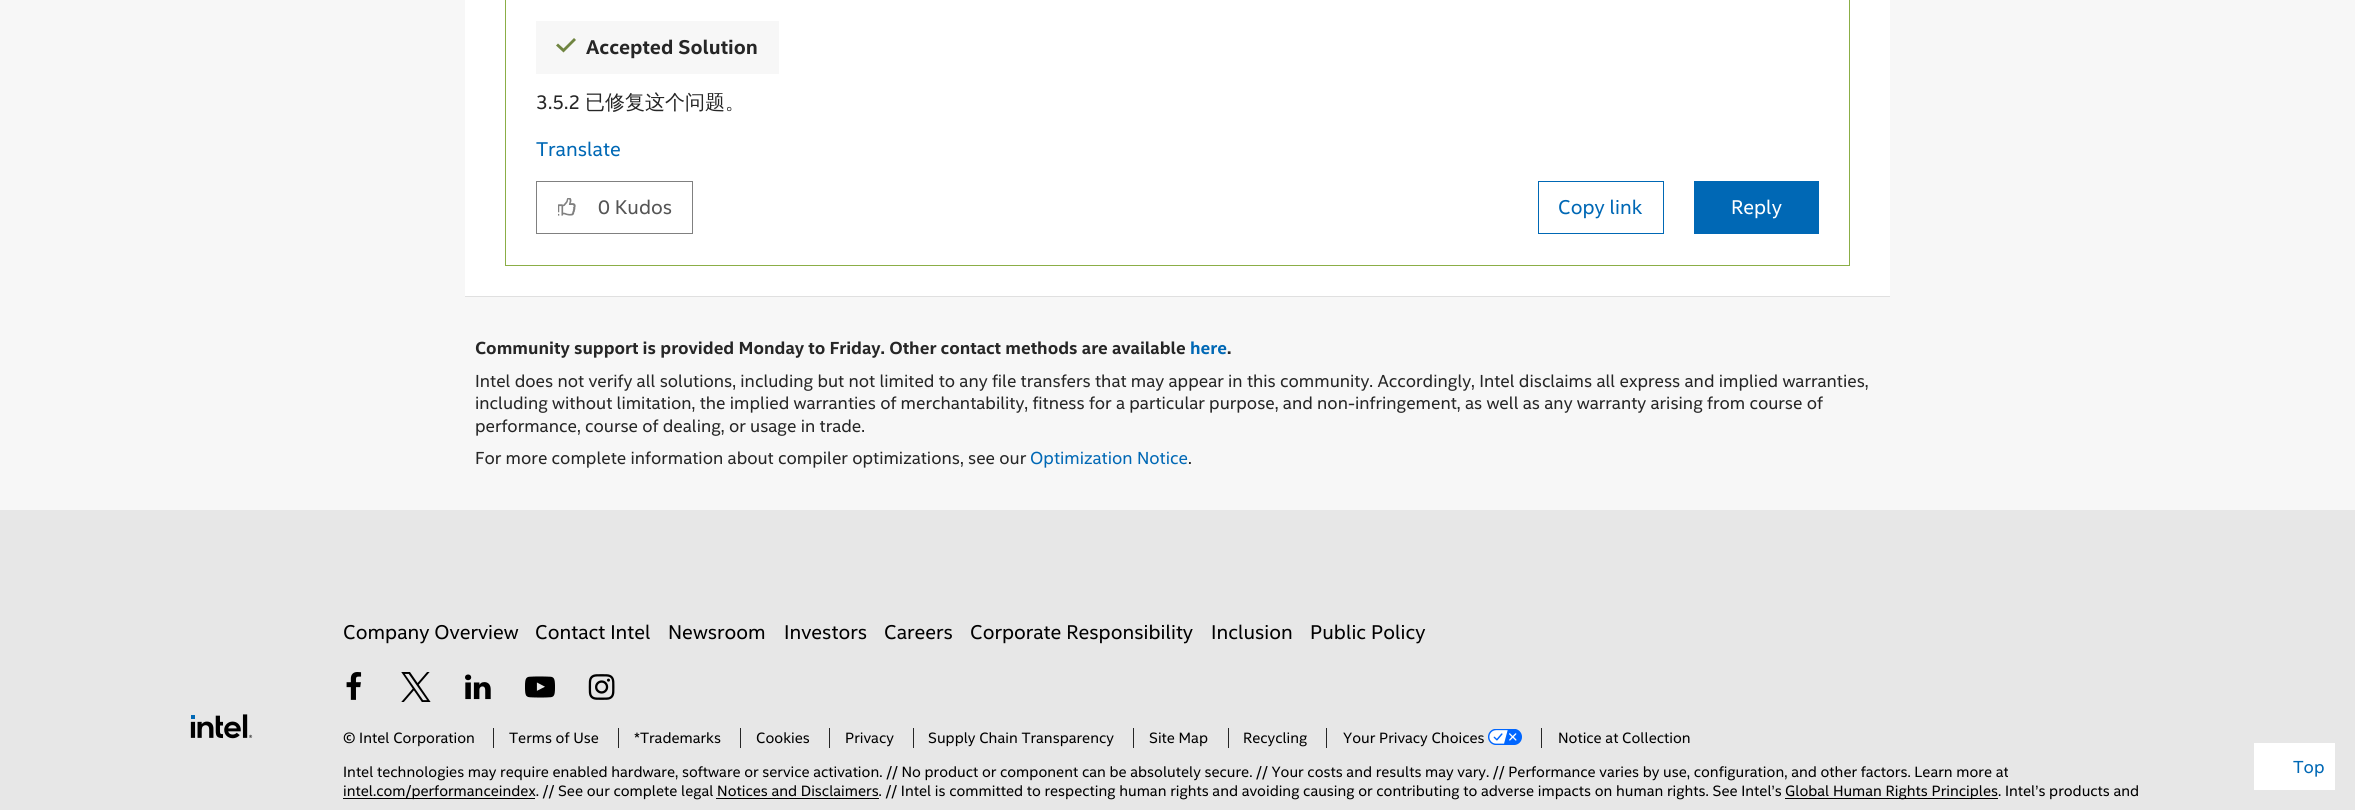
import math
import cairocffi as cairo

surface = cairo.ImageSurface(cairo.FORMAT_RGB24, 2355, 810)
ctx = cairo.Context(surface)
options = cairo.FontOptions()
options.set_hint_metrics(cairo.HINT_METRICS_OFF)
options.set_hint_style(cairo.HINT_STYLE_NONE)
ctx.set_font_options(options)
ctx.set_miter_limit(4)


def rgb(r, g, b):
    ctx.set_source_rgb(r / 255, g / 255, b / 255)


def face(family, size, italic, bold):
    ctx.select_font_face(family, cairo.FONT_SLANT_ITALIC if italic else cairo.FONT_SLANT_NORMAL, cairo.FONT_WEIGHT_BOLD if bold else cairo.FONT_WEIGHT_NORMAL)
    ctx.set_font_size(size)


def label(x, y, s):
    ctx.move_to(x, y)
    ctx.show_text(s)


def rect(x, y, w, h):
    ctx.rectangle(x, y, w, h)
    ctx.fill()


def image(path, x, y, w, h):
    ctx.save()
    ctx.set_source_surface(cairo.ImageSurface.create_from_png(path), x, y)
    ctx.rectangle(x, y, w, h)
    ctx.fill()
    ctx.restore()


rgb(247, 247, 247)
ctx.paint()
rgb(255, 255, 255)
rect(465, 0, 1425, 296)
ctx.rectangle(505.5, -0.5, 1344, 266)
rgb(139, 174, 70)
ctx.set_line_width(1)
ctx.stroke()
rgb(247, 247, 247)
rect(536, 21, 243, 53)
rgb(112, 133, 65)
ctx.new_path()
ctx.move_to(563.5, 52.5)
ctx.line_to(556, 45.5)
ctx.line_to(558, 43.5)
ctx.line_to(563.5, 48.5)
ctx.line_to(574, 38)
ctx.line_to(576, 40)
ctx.close_path()
ctx.fill()
face('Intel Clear', 20, 0, 1)
rgb(38, 38, 38)
label(586, 54, 'Accepted Solution')
face('Intel Clear', 20, 0, 0)
label(536, 109, '3.5.2')
face('WenQuanYi Zen Hei Medium', 20, 0, 0)
label(585, 109, '已修复这个问题。')
face('Intel Clear', 20, 0, 0)
rgb(0, 104, 181)
label(536, 156, 'Translate')
ctx.rectangle(536.5, 181.5, 156, 52)
rgb(128, 128, 128)
ctx.stroke()
image('image0.png', 558, 198, 18, 18)
rgb(85, 85, 85)
label(598, 214, '0 Kudos')
ctx.rectangle(1538.5, 181.5, 125, 52)
rgb(0, 104, 181)
ctx.stroke()
label(1558, 214, 'Copy link')
rect(1694, 181, 125, 53)
rgb(255, 255, 255)
label(1731, 214, 'Reply')
rgb(224, 224, 224)
rect(465, 296, 1425, 1)
face('Intel Clear', 17.5, 0, 1)
rgb(38, 38, 38)
label(475, 354, 'Community support is provided Monday to Friday. Other contact methods are available')
rgb(0, 104, 181)
label(1190, 354, 'here')
rgb(38, 38, 38)
label(1227, 354, '.')
face('Intel Clear', 17.5, 0, 0)
label(475, 387, 'Intel does not verify all solutions, including but not limited to any file transfers that may appear in this community. Accordingly, Intel disclaims all express and implied warranties,')
label(475, 409, 'including without limitation, the implied warranties of merchantability, fitness for a particular purpose, and non-infringement, as well as any warranty arising from course of')
label(475, 432, 'performance, course of dealing, or usage in trade.')
label(475, 464, 'For more complete information about compiler optimizations, see our')
rgb(0, 104, 181)
label(1030, 464, 'Optimization Notice')
rgb(38, 38, 38)
label(1188, 464, '.')
rgb(231, 231, 231)
rect(0, 510, 2355, 300)
rgb(255, 255, 255)
rect(2254, 743, 81, 47)
rgb(0, 104, 181)
label(2293, 773, 'Top')
image('image1.png', 190, 714, 63, 25)
face('Intel Clear', 20, 0, 0)
rgb(0, 0, 0)
label(343, 639, 'Company Overview')
label(535, 639, 'Contact Intel')
label(668, 639, 'Newsroom')
label(784, 639, 'Investors')
label(884, 639, 'Careers')
label(970, 639, 'Corporate Responsibility')
label(1211, 639, 'Inclusion')
label(1310, 639, 'Public Policy')
image('image2.png', 346, 672, 16, 28)
image('image3.png', 401, 672, 30, 30)
image('image4.png', 465, 674, 26, 26)
image('image5.png', 525, 676, 30, 22)
image('image6.png', 588, 674, 27, 26)
face('Intel Clear', 15, 0, 0)
label(343, 743, '© Intel Corporation')
label(509, 743, 'Terms of Use')
rgb(38, 38, 38)
rect(493, 728, 1, 20)
rgb(0, 0, 0)
label(634, 743, '*Trademarks')
rgb(38, 38, 38)
rect(618, 728, 1, 20)
rgb(0, 0, 0)
label(756, 743, 'Cookies')
rgb(38, 38, 38)
rect(740, 728, 1, 20)
rgb(0, 0, 0)
label(845, 743, 'Privacy')
rgb(38, 38, 38)
rect(829, 728, 1, 20)
rgb(0, 0, 0)
label(928, 743, 'Supply Chain Transparency')
rgb(38, 38, 38)
rect(913, 728, 1, 20)
rgb(0, 0, 0)
label(1149, 743, 'Site Map')
rgb(38, 38, 38)
rect(1133, 728, 1, 20)
rgb(0, 0, 0)
label(1243, 743, 'Recycling')
rgb(38, 38, 38)
rect(1228, 728, 1, 20)
rect(1326, 728, 1, 20)
rgb(0, 0, 0)
label(1343, 743, 'Your Privacy Choices')
image('image7.png', 1488, 729, 34, 16)
label(1558, 743, 'Notice at Collection')
rgb(38, 38, 38)
rect(1541, 728, 1, 20)
rgb(0, 0, 0)
label(343, 777, 'Intel technologies may require enabled hardware, software or service activation. // No product or component can be absolutely secure. // Your costs and results may vary. // Performance varies by use, configuration, and other factors. Learn more at')
rect(343, 798, 192, 1)
label(343, 796, 'intel.com/performanceindex. // See our complete legal Notices and Disclaimers. // Intel is committed to respecting human rights and avoiding causing or contributing to adverse impacts on human rights. See Intel’s')
rect(1785, 798, 213, 1)
label(1785, 796, 'Global Human Rights Principles. Intel’s products and')
rect(716, 798, 163, 1)
surface.write_to_png('render.png')
